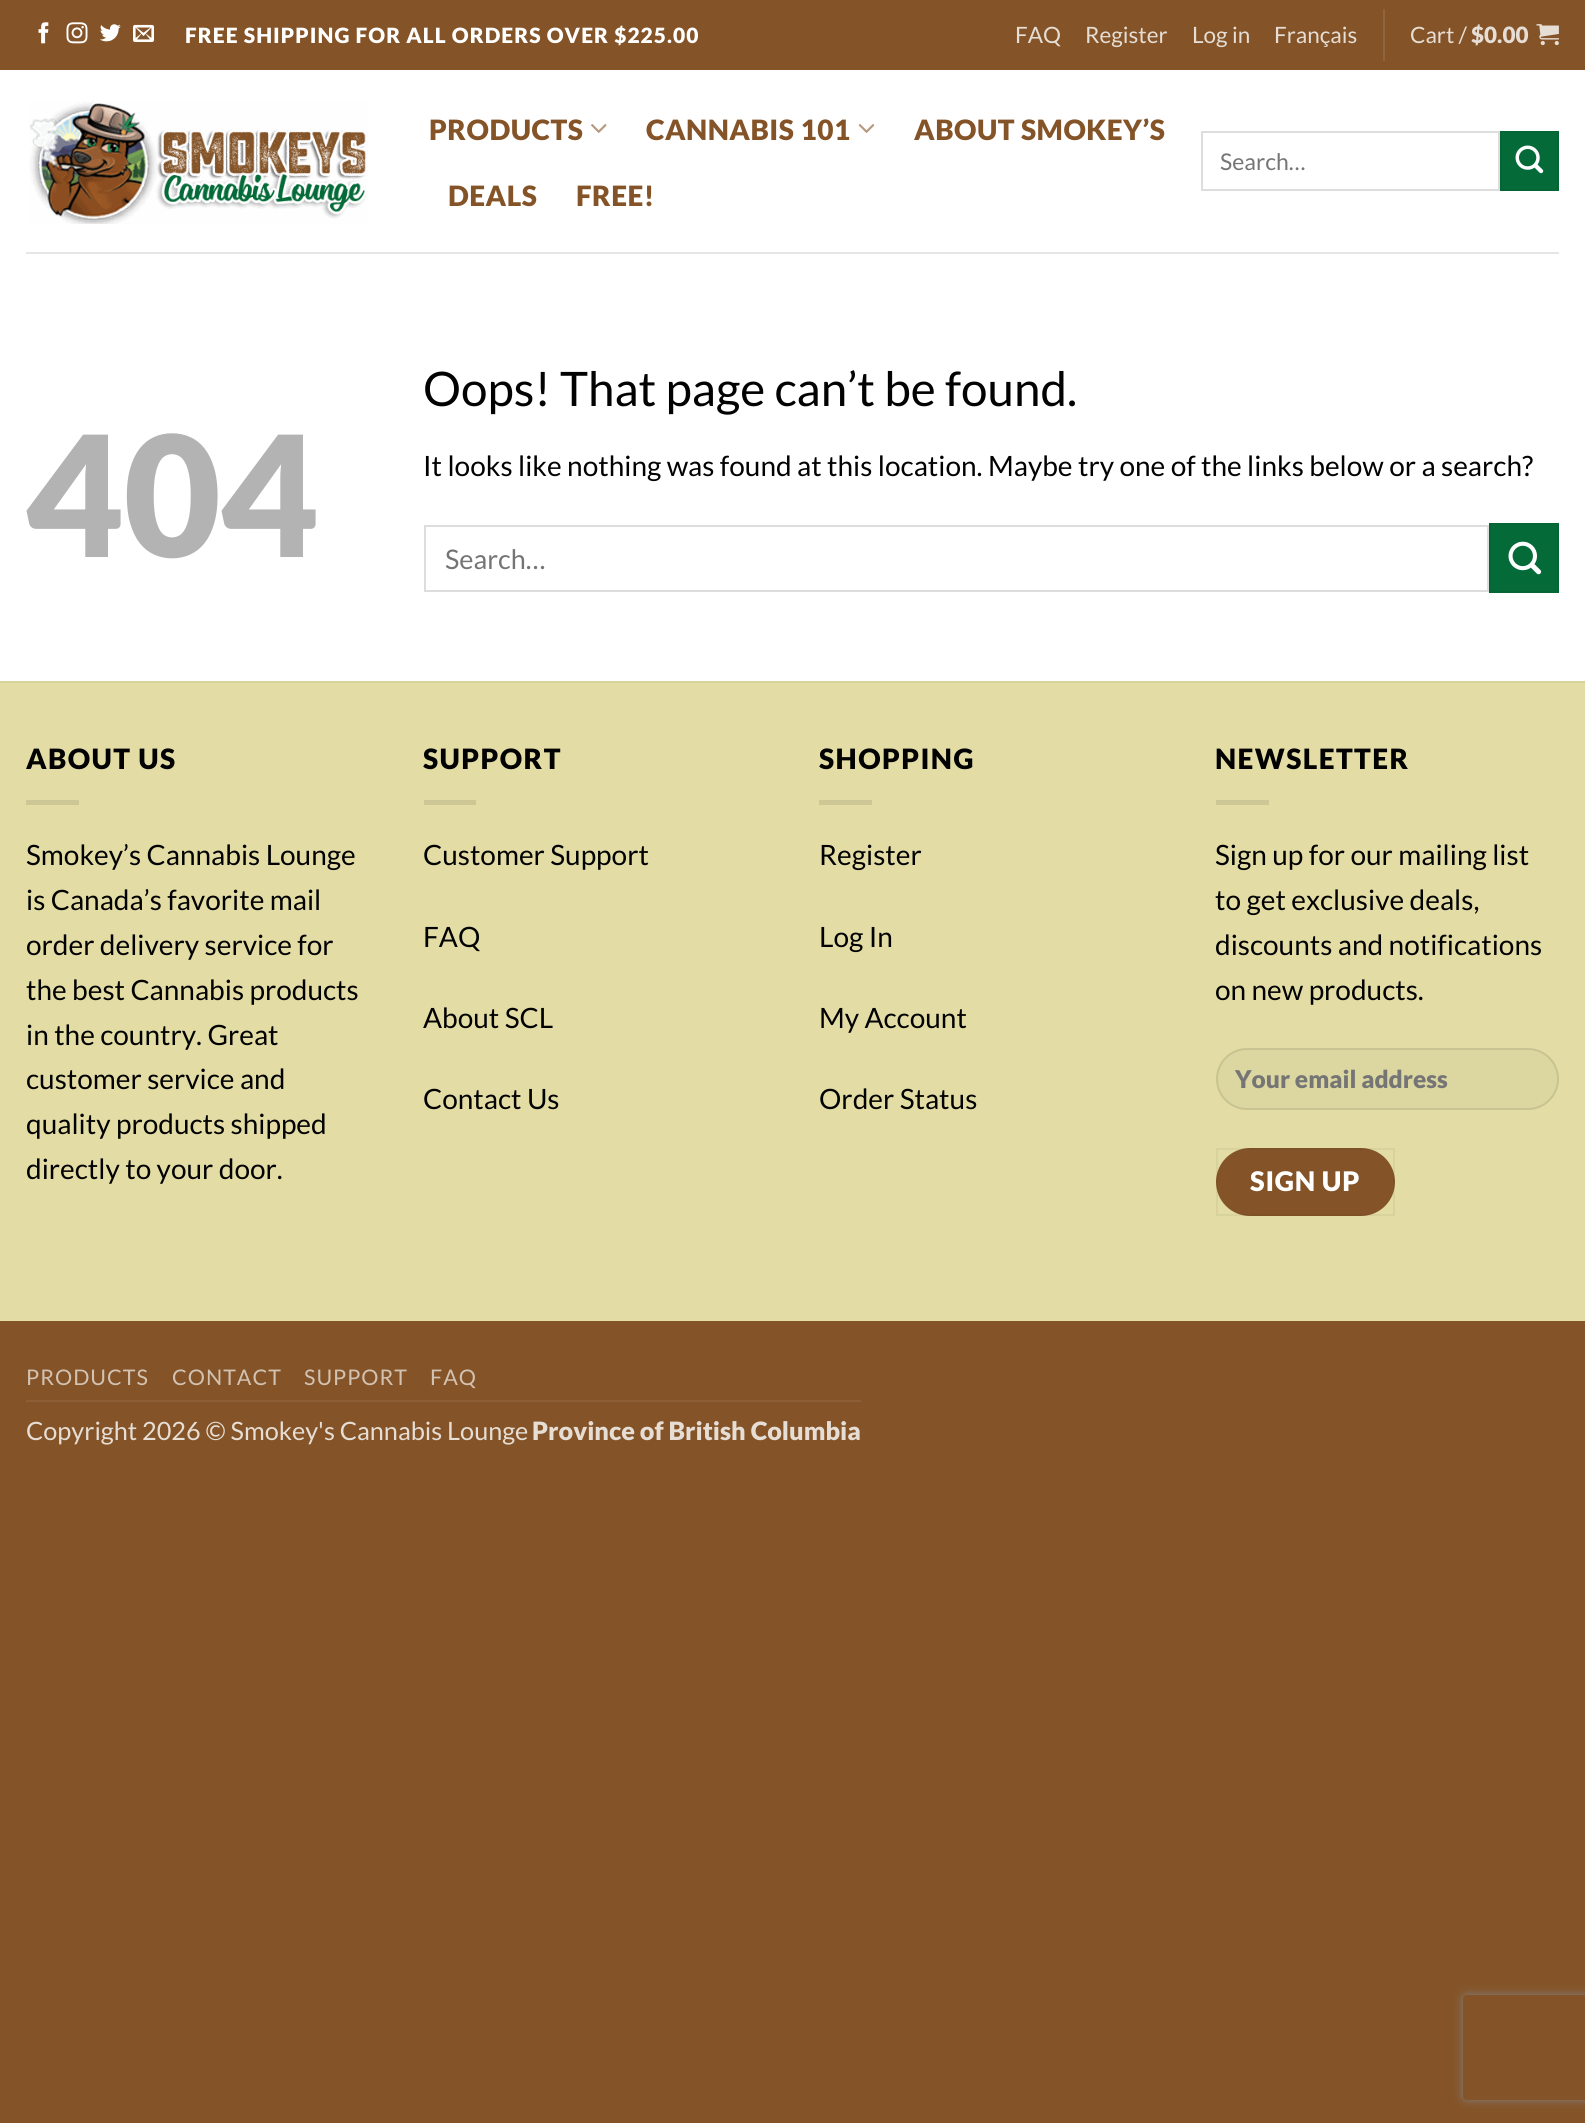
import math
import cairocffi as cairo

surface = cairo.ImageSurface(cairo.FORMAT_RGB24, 1585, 2123)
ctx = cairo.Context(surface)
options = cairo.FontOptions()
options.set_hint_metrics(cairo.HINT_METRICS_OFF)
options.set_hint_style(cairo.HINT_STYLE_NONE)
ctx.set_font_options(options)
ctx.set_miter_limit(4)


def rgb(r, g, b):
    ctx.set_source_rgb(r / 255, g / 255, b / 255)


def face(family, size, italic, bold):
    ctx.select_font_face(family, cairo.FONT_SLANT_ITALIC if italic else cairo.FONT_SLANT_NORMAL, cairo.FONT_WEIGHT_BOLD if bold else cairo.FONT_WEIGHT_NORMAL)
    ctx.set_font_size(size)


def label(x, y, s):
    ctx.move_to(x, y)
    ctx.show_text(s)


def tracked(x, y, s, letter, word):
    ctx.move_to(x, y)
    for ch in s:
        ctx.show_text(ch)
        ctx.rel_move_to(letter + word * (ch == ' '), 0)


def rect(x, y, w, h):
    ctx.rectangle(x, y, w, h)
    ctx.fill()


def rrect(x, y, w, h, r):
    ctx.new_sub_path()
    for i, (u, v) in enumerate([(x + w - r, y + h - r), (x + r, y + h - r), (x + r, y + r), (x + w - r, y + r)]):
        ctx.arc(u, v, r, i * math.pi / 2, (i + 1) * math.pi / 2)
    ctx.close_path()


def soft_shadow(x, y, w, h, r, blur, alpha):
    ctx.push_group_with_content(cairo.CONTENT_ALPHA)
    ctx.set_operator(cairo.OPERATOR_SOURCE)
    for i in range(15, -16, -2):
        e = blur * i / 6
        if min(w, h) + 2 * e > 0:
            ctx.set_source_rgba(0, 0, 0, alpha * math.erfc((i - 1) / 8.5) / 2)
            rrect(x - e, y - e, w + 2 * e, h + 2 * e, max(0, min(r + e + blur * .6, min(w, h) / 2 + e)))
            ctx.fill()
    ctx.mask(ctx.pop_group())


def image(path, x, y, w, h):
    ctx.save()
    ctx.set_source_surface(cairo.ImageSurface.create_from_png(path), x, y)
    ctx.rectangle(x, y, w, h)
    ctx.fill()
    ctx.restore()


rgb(132, 84, 40)
ctx.paint()
rgb(255, 255, 255)
rect(0, 70, 1585, 611)
image('image0.png', 38, 22, 11, 22)
image('image1.png', 66, 22, 22, 22)
image('image2.png', 100, 24, 21, 18)
image('image3.png', 133, 24, 21, 18)
face('Lato Black', 21, 0, 0)
tracked(185, 43, 'FREE SHIPPING FOR ALL ORDERS OVER $225.00', 1.05, 0)
face('Lato', 22.5, 0, 0)
rgb(230, 221, 212)
label(1015, 43, 'FAQ')
label(1085, 43, 'Register')
label(1192, 43, 'Log in')
label(1274, 43, 'Français')
rgb(144, 100, 60)
rect(1383, 9, 2, 52)
rgb(230, 221, 212)
label(1410, 43, 'Cart /')
face('Lato Black', 22.5, 0, 0)
label(1471, 43, '$0.00')
image('image4.png', 1536, 24, 23, 22)
image('image5.png', 29, 101, 339, 123)
face('Lato Black', 28, 0, 0)
rgb(132, 84, 40)
tracked(429, 140, 'PRODUCTS', 0.5, 0)
image('image6.png', 591, 124, 16, 9)
tracked(646, 140, 'CANNABIS 101', 0.5, 0)
image('image7.png', 858, 124, 17, 9)
tracked(914, 140, 'ABOUT SMOKEY’S', 0.5, 0)
tracked(448, 206, 'DEALS', 0.5, 0)
tracked(576, 206, 'FREE!', 0.5, 0)
ctx.rectangle(1202, 132, 297, 58)
rgb(221, 221, 221)
ctx.stroke()
face('Lato', 23, 0, 0)
rgb(117, 117, 117)
label(1220, 170, 'Search…')
rgb(4, 106, 56)
ctx.rectangle(1501, 132, 57, 58)
ctx.fill_preserve()
rgb(4, 101, 53)
ctx.stroke()
image('image8.png', 1515, 145, 29, 29)
rgb(230, 230, 230)
rect(26, 252, 1533, 2)
face('Lato Black', 168, 0, 0)
rgb(179, 179, 179)
label(26, 557, '404')
face('Lato', 47.6, 0, 0)
rgb(2, 2, 2)
label(423, 406, 'Oops! That page can’t be found.')
face('Lato', 28, 0, 0)
label(423, 476, 'It looks like nothing was found at this location. Maybe try one of the links below or a search?')
ctx.rectangle(425, 526, 1063, 65)
rgb(221, 221, 221)
ctx.stroke()
face('Lato', 27, 0, 0)
rgb(117, 117, 117)
label(445, 569, 'Search…')
rgb(4, 106, 56)
ctx.rectangle(1490, 524, 68, 68)
ctx.fill_preserve()
rgb(4, 101, 53)
ctx.stroke()
image('image9.png', 1508, 541, 34, 34)
rgb(227, 221, 165)
rect(0, 683, 1585, 638)
rgb(216, 210, 157)
rect(0, 681, 1585, 2)
face('Lato Black', 28, 0, 0)
rgb(2, 2, 2)
tracked(26, 769, 'ABOUT US', 1.4, 0)
rgb(204, 199, 149)
rect(26, 800, 53, 5)
face('Lato', 28, 0, 0)
rgb(2, 2, 2)
label(26, 865, 'Smokey’s Cannabis Lounge')
label(26, 910, 'is Canada’s favorite mail')
label(26, 955, 'order delivery service for')
label(26, 1000, 'the best Cannabis products')
label(26, 1045, 'in the country. Great')
label(26, 1089, 'customer service and')
label(26, 1134, 'quality products shipped')
label(26, 1179, 'directly to your door.')
face('Lato Black', 28, 0, 0)
tracked(423, 769, 'SUPPORT', 1.4, 0)
rgb(204, 199, 149)
rect(424, 800, 52, 5)
face('Lato', 28, 0, 0)
rgb(2, 2, 2)
label(423, 865, 'Customer Support')
label(423, 947, 'FAQ')
label(423, 1028, 'About SCL')
label(423, 1109, 'Contact Us')
face('Lato Black', 28, 0, 0)
tracked(819, 769, 'SHOPPING', 1.4, 0)
rgb(204, 199, 149)
rect(819, 800, 53, 5)
face('Lato', 28, 0, 0)
rgb(2, 2, 2)
label(819, 865, 'Register')
label(819, 947, 'Log In')
label(819, 1028, 'My Account')
label(819, 1109, 'Order Status')
face('Lato Black', 28, 0, 0)
tracked(1215, 769, 'NEWSLETTER', 1.4, 0)
rgb(204, 199, 149)
rect(1216, 800, 53, 5)
face('Lato', 28, 0, 0)
rgb(2, 2, 2)
label(1215, 865, 'Sign up for our mailing list')
label(1215, 910, 'to get exclusive deals,')
label(1215, 955, 'discounts and notifications')
label(1215, 1000, 'on new products.')
rgb(220, 214, 160)
rrect(1216, 1048, 343, 62, 31)
ctx.fill()
rrect(1217, 1049, 341, 60, 30)
ctx.set_source_rgba(0, 0, 0, 0.09)
ctx.stroke()
face('Lato Black', 24.5, 0, 0)
rgb(117, 117, 117)
label(1235, 1088, 'Your email address')
rgb(132, 84, 40)
rrect(1216, 1148, 179, 68, 34)
ctx.fill()
ctx.rectangle(1217, 1149, 177, 66)
ctx.set_source_rgba(0, 0, 0, 0.05)
ctx.stroke()
face('Lato Black', 27, 0, 0)
rgb(255, 255, 255)
tracked(1250, 1191, 'SIGN UP', 0.75, 0)
rgb(140, 95, 54)
rect(26, 1400, 835, 2)
face('Lato', 21.5, 0, 0)
rgb(210, 194, 178)
tracked(26, 1385, 'PRODUCTS', 1, 0)
tracked(172, 1385, 'CONTACT', 1, 0)
tracked(304, 1385, 'SUPPORT', 1, 0)
tracked(430, 1385, 'FAQ', 1, 0)
face('Lato', 25.25, 0, 0)
rgb(230, 221, 212)
label(26, 1440, 'Copyright 2026 © Smokey\'s Cannabis Lounge')
face('Lato Black', 25.25, 0, 0)
label(532, 1440, 'Province of British Columbia')
ctx.save()
ctx.set_fill_rule(cairo.FILL_RULE_EVEN_ODD)
ctx.new_path()
ctx.move_to(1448, 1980)
ctx.line_to(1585, 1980)
ctx.line_to(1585, 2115)
ctx.line_to(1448, 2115)
ctx.close_path()
ctx.move_to(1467, 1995)
ctx.line_to(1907, 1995)
ctx.curve_to(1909, 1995, 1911, 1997, 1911, 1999)
ctx.line_to(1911, 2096)
ctx.curve_to(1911, 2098, 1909, 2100, 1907, 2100)
ctx.line_to(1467, 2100)
ctx.curve_to(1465, 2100, 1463, 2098, 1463, 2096)
ctx.line_to(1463, 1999)
ctx.curve_to(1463, 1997, 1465, 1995, 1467, 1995)
ctx.close_path()
ctx.clip()
rgb(128, 128, 128)
soft_shadow(1463, 1995, 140, 105, 4, 4.5, 1)
ctx.restore()
surface.write_to_png('render.png')
